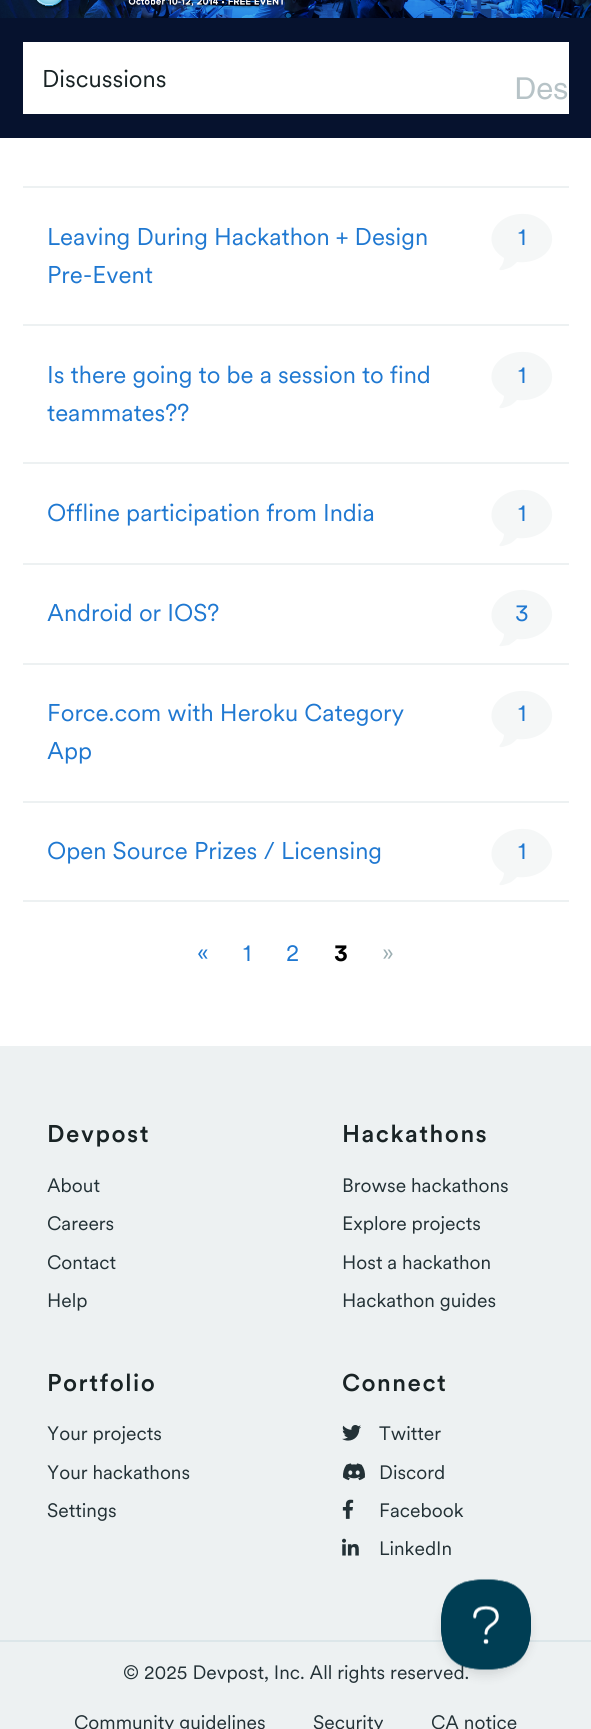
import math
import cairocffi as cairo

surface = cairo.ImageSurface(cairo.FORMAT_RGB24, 591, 1729)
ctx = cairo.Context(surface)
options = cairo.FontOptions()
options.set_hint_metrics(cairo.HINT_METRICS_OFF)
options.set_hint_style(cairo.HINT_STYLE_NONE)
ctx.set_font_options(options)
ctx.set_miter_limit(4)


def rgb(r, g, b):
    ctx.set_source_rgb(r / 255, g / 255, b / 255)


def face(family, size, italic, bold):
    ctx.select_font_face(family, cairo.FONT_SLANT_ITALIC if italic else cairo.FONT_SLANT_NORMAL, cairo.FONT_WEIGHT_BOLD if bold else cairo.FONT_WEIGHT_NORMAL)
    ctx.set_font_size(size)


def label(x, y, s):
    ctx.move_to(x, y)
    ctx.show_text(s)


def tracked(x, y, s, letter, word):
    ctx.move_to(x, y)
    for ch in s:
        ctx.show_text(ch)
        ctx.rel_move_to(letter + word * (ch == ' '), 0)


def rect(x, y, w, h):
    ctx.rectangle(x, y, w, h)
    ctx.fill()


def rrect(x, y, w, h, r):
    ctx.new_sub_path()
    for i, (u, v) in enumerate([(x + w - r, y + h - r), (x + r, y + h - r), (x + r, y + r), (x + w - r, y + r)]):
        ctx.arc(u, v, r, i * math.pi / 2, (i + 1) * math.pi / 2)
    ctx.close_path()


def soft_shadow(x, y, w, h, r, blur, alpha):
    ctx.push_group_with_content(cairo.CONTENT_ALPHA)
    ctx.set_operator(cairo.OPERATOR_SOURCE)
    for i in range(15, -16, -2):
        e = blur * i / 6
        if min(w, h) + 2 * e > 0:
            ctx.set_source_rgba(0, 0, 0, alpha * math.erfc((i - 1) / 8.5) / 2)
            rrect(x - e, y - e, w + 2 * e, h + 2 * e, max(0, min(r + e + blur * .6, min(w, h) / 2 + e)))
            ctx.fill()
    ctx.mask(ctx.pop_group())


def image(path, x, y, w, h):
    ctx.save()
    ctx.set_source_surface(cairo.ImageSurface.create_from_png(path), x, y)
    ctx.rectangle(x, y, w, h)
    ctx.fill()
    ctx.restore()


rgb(255, 255, 255)
ctx.paint()
image('image0.png', 0, 0, 591, 18)
rgb(6, 18, 46)
rect(0, 18, 591, 120)
rgb(255, 255, 255)
rect(23, 42, 546, 72)
face('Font', 24, 0, 0)
rgb(25, 35, 37)
label(42, 87, 'Discussions')
image('image1.png', 516, 77, 52, 23)
rgb(237, 241, 242)
rect(23, 186, 546, 2)
rect(23, 324, 546, 2)
rgb(31, 120, 209)
label(47, 245, 'Leaving During Hackathon + Design')
label(47, 283, 'Pre-Event')
rgb(245, 247, 247)
ctx.new_path()
ctx.move_to(543, 221)
ctx.curve_to(548, 225, 551, 230, 552, 236)
ctx.curve_to(554, 255, 533, 264, 517, 262)
ctx.curve_to(515, 264, 512, 267, 509, 268)
ctx.line_to(503, 270)
ctx.curve_to(496, 271, 501, 267, 502, 265)
ctx.curve_to(503, 263, 504, 260, 504, 258)
ctx.curve_to(478, 242, 496, 212, 525, 214)
ctx.curve_to(532, 214, 538, 217, 543, 221)
ctx.close_path()
ctx.fill()
rgb(31, 120, 209)
label(518, 245, '1')
rgb(237, 241, 242)
rect(23, 462, 546, 2)
rgb(31, 120, 209)
label(47, 383, 'Is there going to be a session to find')
label(47, 421, 'teammates??')
rgb(245, 247, 247)
ctx.new_path()
ctx.move_to(543, 359)
ctx.curve_to(548, 363, 551, 368, 552, 374)
ctx.curve_to(554, 393, 533, 402, 517, 400)
ctx.curve_to(515, 402, 512, 405, 509, 406)
ctx.line_to(503, 408)
ctx.curve_to(496, 409, 501, 405, 502, 403)
ctx.curve_to(503, 401, 504, 398, 504, 396)
ctx.curve_to(478, 380, 496, 350, 525, 352)
ctx.curve_to(532, 352, 538, 355, 543, 359)
ctx.close_path()
ctx.fill()
rgb(31, 120, 209)
label(518, 383, '1')
rgb(237, 241, 242)
rect(23, 563, 546, 2)
rgb(31, 120, 209)
label(47, 521, 'Offline participation from India')
rgb(245, 247, 247)
ctx.new_path()
ctx.move_to(543, 497)
ctx.curve_to(548, 501, 551, 506, 552, 512)
ctx.curve_to(554, 531, 533, 540, 517, 538)
ctx.curve_to(515, 540, 512, 543, 509, 544)
ctx.line_to(503, 546)
ctx.curve_to(496, 547, 501, 543, 502, 541)
ctx.curve_to(503, 539, 504, 536, 504, 534)
ctx.curve_to(478, 518, 496, 488, 525, 490)
ctx.curve_to(532, 490, 538, 493, 543, 497)
ctx.close_path()
ctx.fill()
rgb(31, 120, 209)
label(518, 521, '1')
rgb(237, 241, 242)
rect(23, 663, 546, 2)
rgb(31, 120, 209)
label(47, 621, 'Android or IOS?')
rgb(245, 247, 247)
ctx.new_path()
ctx.move_to(543, 597)
ctx.curve_to(548, 601, 551, 606, 552, 612)
ctx.curve_to(554, 631, 533, 641, 517, 639)
ctx.curve_to(515, 641, 512, 643, 509, 645)
ctx.line_to(503, 646)
ctx.curve_to(496, 647, 501, 644, 502, 641)
ctx.curve_to(503, 639, 504, 637, 504, 634)
ctx.curve_to(478, 619, 496, 588, 525, 590)
ctx.curve_to(532, 591, 538, 593, 543, 597)
ctx.close_path()
ctx.fill()
rgb(31, 120, 209)
label(515, 621, '3')
rgb(237, 241, 242)
rect(23, 801, 546, 2)
rgb(31, 120, 209)
label(47, 721, 'Force.com with Heroku Category')
label(47, 759, 'App')
rgb(245, 247, 247)
ctx.new_path()
ctx.move_to(543, 698)
ctx.curve_to(548, 702, 551, 707, 552, 713)
ctx.curve_to(554, 732, 533, 741, 517, 739)
ctx.curve_to(515, 741, 512, 744, 509, 745)
ctx.line_to(503, 747)
ctx.curve_to(496, 748, 501, 744, 502, 742)
ctx.curve_to(503, 740, 504, 737, 504, 735)
ctx.curve_to(478, 719, 496, 689, 525, 691)
ctx.curve_to(532, 691, 538, 694, 543, 698)
ctx.close_path()
ctx.fill()
rgb(31, 120, 209)
label(518, 721, '1')
rgb(237, 241, 242)
rect(23, 900, 546, 2)
rgb(31, 120, 209)
label(47, 859, 'Open Source Prizes / Licensing')
rgb(245, 247, 247)
ctx.new_path()
ctx.move_to(543, 836)
ctx.curve_to(548, 840, 551, 845, 552, 851)
ctx.curve_to(554, 870, 533, 879, 517, 877)
ctx.curve_to(515, 879, 512, 882, 509, 883)
ctx.line_to(503, 885)
ctx.curve_to(496, 886, 501, 882, 502, 880)
ctx.curve_to(503, 878, 504, 875, 504, 873)
ctx.curve_to(478, 857, 496, 827, 525, 829)
ctx.curve_to(532, 829, 538, 832, 543, 836)
ctx.close_path()
ctx.fill()
rgb(31, 120, 209)
label(518, 859, '1')
label(197, 961, '«')
label(243, 961, '1')
label(286, 961, '2')
face('Font', 24, 0, 1)
rgb(0, 0, 0)
label(334, 961, '3')
face('Font', 24, 0, 0)
rgb(156, 174, 178)
label(382, 961, '»')
rgb(237, 241, 242)
rect(0, 1046, 591, 683)
face('Font Medium', 24, 0, 0)
rgb(25, 35, 37)
tracked(47, 1142, 'Devpost', 1.5, 0)
face('Font', 19.25, 0, 0)
rgb(35, 49, 54)
label(47, 1192, 'About')
label(47, 1230, 'Careers')
label(47, 1269, 'Contact')
label(47, 1307, 'Help')
face('Font Medium', 24, 0, 0)
rgb(25, 35, 37)
tracked(342, 1142, 'Hackathons', 1.5, 0)
face('Font', 19.25, 0, 0)
rgb(35, 49, 54)
label(342, 1192, 'Browse hackathons')
label(342, 1230, 'Explore projects')
label(342, 1269, 'Host a hackathon')
label(342, 1307, 'Hackathon guides')
face('Font Medium', 24, 0, 0)
rgb(25, 35, 37)
tracked(47, 1391, 'Portfolio', 1.5, 0)
face('Font', 19.25, 0, 0)
rgb(35, 49, 54)
label(47, 1440, 'Your projects')
label(47, 1479, 'Your hackathons')
label(47, 1517, 'Settings')
face('Font Medium', 24, 0, 0)
rgb(25, 35, 37)
tracked(342, 1391, 'Connect', 1.5, 0)
image('image2.png', 342, 1425, 19, 16)
face('Font', 19.25, 0, 0)
rgb(35, 49, 54)
label(379, 1440, 'Twitter')
image('image3.png', 343, 1463, 22, 18)
label(379, 1479, 'Discord')
image('image4.png', 342, 1499, 12, 20)
label(379, 1517, 'Facebook')
image('image5.png', 342, 1538, 17, 18)
label(379, 1555, 'LinkedIn')
rgb(220, 230, 233)
rect(0, 1640, 591, 2)
rgb(35, 49, 54)
label(123, 1679, '© 2025 Devpost, Inc. All rights reserved.')
label(74, 1729, 'Community guidelines')
label(313, 1729, 'Security')
label(431, 1729, 'CA notice')
rgb(0, 0, 0)
soft_shadow(441, 1586, 90, 90, 45, 5, 0.1)
image('image6.png', 441, 1579, 90, 91)
surface.write_to_png('render.png')
